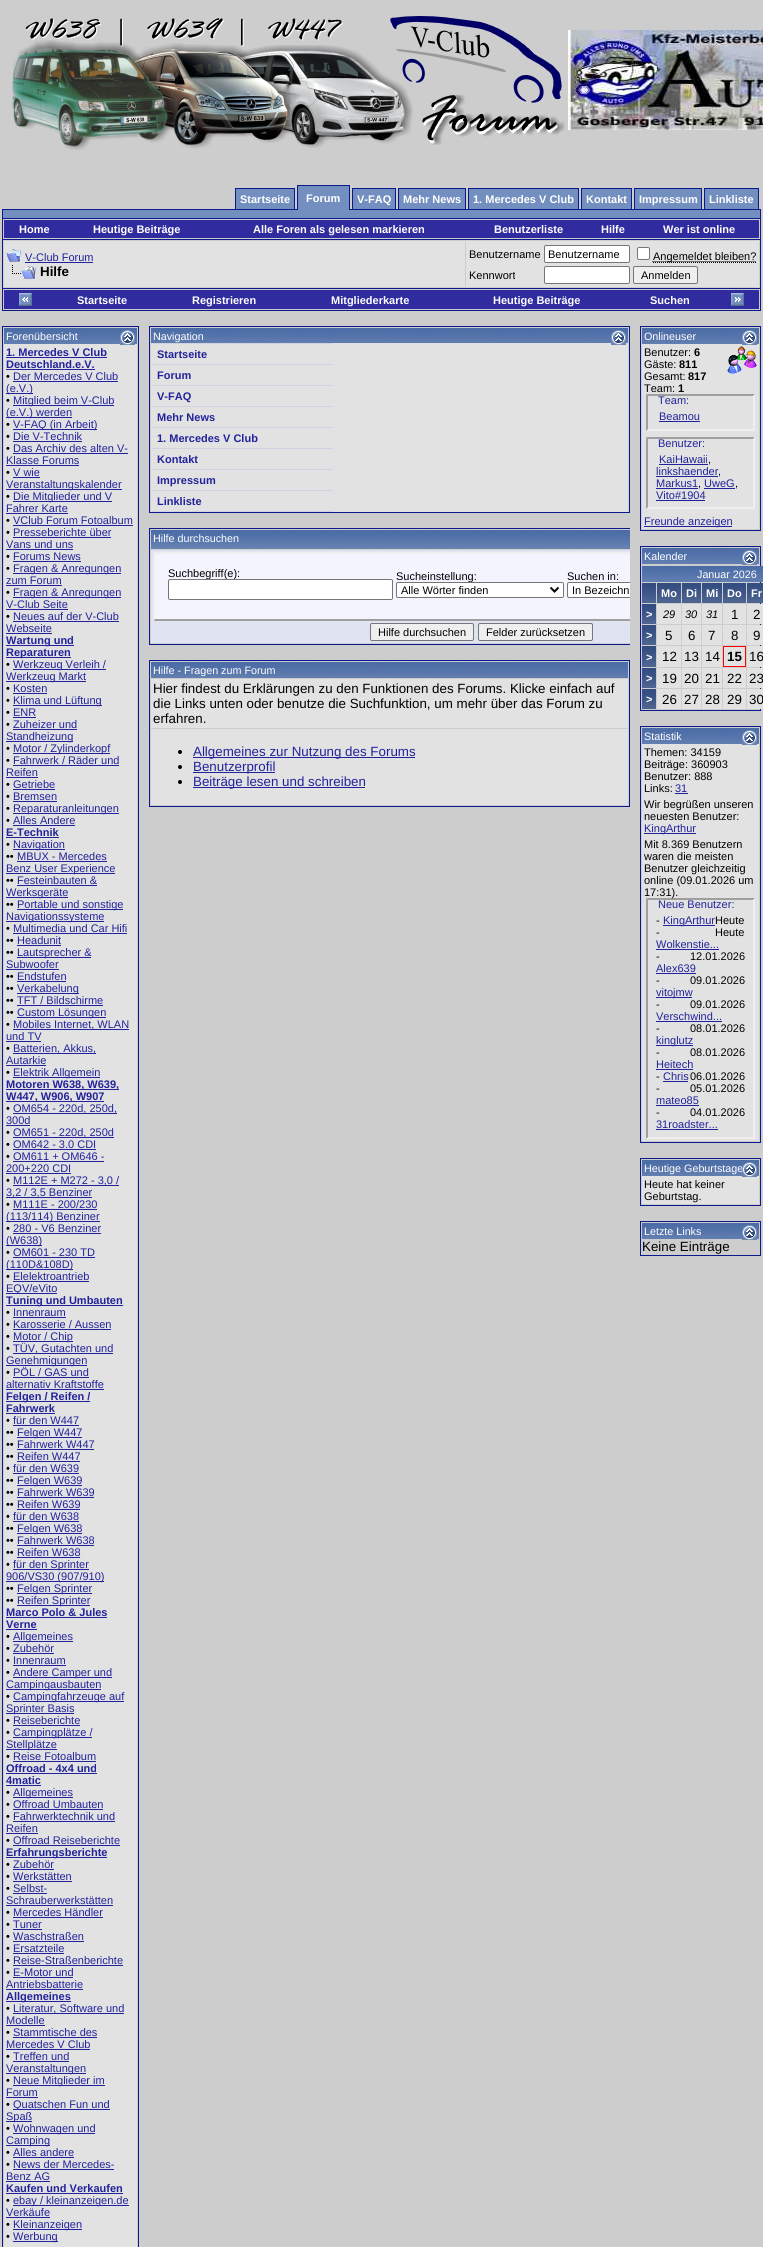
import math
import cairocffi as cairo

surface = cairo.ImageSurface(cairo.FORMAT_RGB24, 763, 2247)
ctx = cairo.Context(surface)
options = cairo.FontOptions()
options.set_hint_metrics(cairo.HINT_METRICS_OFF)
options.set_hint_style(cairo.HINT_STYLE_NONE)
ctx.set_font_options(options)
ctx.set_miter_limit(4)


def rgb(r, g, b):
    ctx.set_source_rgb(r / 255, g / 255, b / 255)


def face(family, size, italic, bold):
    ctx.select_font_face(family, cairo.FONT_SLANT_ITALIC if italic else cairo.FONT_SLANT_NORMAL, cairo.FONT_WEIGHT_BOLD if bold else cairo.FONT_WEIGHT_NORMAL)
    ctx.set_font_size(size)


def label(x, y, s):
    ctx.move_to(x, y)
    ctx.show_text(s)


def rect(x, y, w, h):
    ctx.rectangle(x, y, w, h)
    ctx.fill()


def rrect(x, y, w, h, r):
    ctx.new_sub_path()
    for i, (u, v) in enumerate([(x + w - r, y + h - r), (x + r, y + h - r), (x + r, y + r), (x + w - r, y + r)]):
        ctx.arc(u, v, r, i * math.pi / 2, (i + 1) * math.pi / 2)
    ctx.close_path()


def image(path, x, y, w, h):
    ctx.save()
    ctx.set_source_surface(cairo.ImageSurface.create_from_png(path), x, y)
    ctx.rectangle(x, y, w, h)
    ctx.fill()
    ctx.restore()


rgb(205, 205, 205)
ctx.paint()
image('image0.png', 12, 16, 553, 134)
image('image1.png', 568, 30, 195, 100)
rgb(115, 143, 191)
rect(236, 189, 58, 20)
rgb(11, 25, 140)
rect(235, 188, 60, 1)
rect(294, 188, 1, 21)
rect(235, 188, 1, 21)
face('Liberation Sans', 11, 0, 1)
rgb(255, 255, 255)
label(240, 203, 'Startseite')
rgb(11, 25, 140)
rect(2, 209, 759, 1)
rgb(115, 143, 191)
rect(298, 186, 51, 24)
rgb(11, 25, 140)
rect(297, 185, 53, 1)
rect(349, 185, 1, 25)
rect(297, 185, 1, 25)
rgb(255, 255, 255)
label(306, 202, 'Forum')
rgb(115, 143, 191)
rect(353, 189, 42, 20)
rgb(11, 25, 140)
rect(352, 188, 44, 1)
rect(395, 188, 1, 21)
rect(352, 188, 1, 21)
rgb(255, 255, 255)
label(357, 203, 'V-FAQ')
rgb(115, 143, 191)
rect(399, 189, 66, 20)
rgb(11, 25, 140)
rect(398, 188, 68, 1)
rect(465, 188, 1, 21)
rect(398, 188, 1, 21)
rgb(255, 255, 255)
label(403, 203, 'Mehr News')
rgb(115, 143, 191)
rect(469, 189, 109, 20)
rgb(11, 25, 140)
rect(468, 188, 111, 1)
rect(578, 188, 1, 21)
rect(468, 188, 1, 21)
rgb(255, 255, 255)
label(473, 203, '1. Mercedes V Club')
rgb(115, 143, 191)
rect(582, 189, 49, 20)
rgb(11, 25, 140)
rect(581, 188, 51, 1)
rect(631, 188, 1, 21)
rect(581, 188, 1, 21)
rgb(255, 255, 255)
label(586, 203, 'Kontakt')
rgb(115, 143, 191)
rect(635, 189, 66, 20)
rgb(11, 25, 140)
rect(634, 188, 68, 1)
rect(701, 188, 1, 21)
rect(634, 188, 1, 21)
rgb(255, 255, 255)
label(639, 203, 'Impressum')
rgb(115, 143, 191)
rect(705, 189, 53, 20)
rgb(11, 25, 140)
rect(704, 188, 55, 1)
rect(758, 188, 1, 21)
rect(704, 188, 1, 21)
rgb(255, 255, 255)
label(709, 203, 'Linkliste')
rgb(115, 143, 191)
rect(3, 210, 757, 8)
rgb(11, 25, 140)
rect(760, 209, 1, 9)
rect(2, 209, 1, 9)
rect(2, 218, 759, 1)
rect(760, 218, 1, 21)
rect(2, 218, 1, 21)
rgb(48, 43, 159)
rect(4, 220, 755, 18)
rgb(255, 255, 255)
label(19, 233, 'Home')
label(93, 233, 'Heutige Beiträge')
label(253, 233, 'Alle Foren als gelesen markieren')
label(494, 233, 'Benutzerliste')
label(601, 233, 'Hilfe')
label(663, 233, 'Wer ist online')
ctx.rectangle(2.5, 239.5, 758, 49)
rgb(11, 25, 140)
ctx.set_line_width(1)
ctx.stroke()
rgb(226, 226, 226)
rect(4, 241, 461, 46)
image('image2.png', 6, 249, 15, 13)
face('Liberation Sans', 11, 0, 0)
rgb(34, 34, 156)
label(25, 261, 'V-Club Forum')
rect(25, 262, 68, 1)
image('image3.png', 12, 265, 24, 14)
face('Liberation Sans', 13.35, 0, 1)
rgb(0, 0, 0)
label(40, 276, 'Hilfe')
rgb(226, 226, 226)
rect(466, 241, 293, 46)
face('Liberation Sans', 11, 0, 0)
rgb(0, 0, 0)
label(469, 258, 'Benutzername')
rgb(255, 255, 255)
rrect(544.5, 245.5, 85, 17, 1.5)
ctx.fill_preserve()
rgb(118, 118, 118)
ctx.stroke()
rgb(0, 0, 0)
label(548, 258, 'Benutzername')
rgb(255, 255, 255)
rrect(637.5, 247.5, 12, 12, 1.5)
ctx.fill_preserve()
rgb(118, 118, 118)
ctx.stroke()
ctx.new_path()
ctx.move_to(653, 262.5)
ctx.line_to(756, 262.5)
rgb(0, 0, 0)
ctx.set_dash([1, 1])
ctx.stroke()
ctx.new_path()
ctx.move_to(652.5, 261.5)
ctx.line_to(756, 261.5)
ctx.stroke()
label(653, 260, 'Angemeldet bleiben?')
label(469, 279, 'Kennwort')
rgb(255, 255, 255)
rrect(544.5, 266.5, 85, 17, 1.5)
ctx.fill_preserve()
rgb(118, 118, 118)
ctx.set_dash([])
ctx.stroke()
rgb(239, 239, 239)
rrect(633.5, 266.5, 64, 17, 1.5)
ctx.fill_preserve()
rgb(118, 118, 118)
ctx.stroke()
rgb(0, 0, 0)
label(641, 279, 'Anmelden')
rgb(11, 25, 140)
rect(760, 289, 1, 22)
rect(2, 310, 759, 1)
rect(2, 289, 1, 22)
rgb(48, 43, 159)
rect(4, 290, 755, 19)
image('image4.png', 19, 293, 13, 13)
face('Liberation Sans', 11, 0, 1)
rgb(255, 255, 255)
label(77, 304, 'Startseite')
label(192, 304, 'Registrieren')
label(331, 304, 'Mitgliederkarte')
label(493, 304, 'Heutige Beiträge')
label(650, 304, 'Suchen')
image('image5.png', 731, 293, 13, 13)
ctx.rectangle(2.5, 326.5, 136, 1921)
rgb(11, 25, 140)
ctx.stroke()
image('image6.png', 4, 328, 133, 16)
face('Liberation Sans', 10.75, 0, 0)
rgb(255, 255, 255)
label(6, 340, 'Forenübersicht')
rgb(226, 226, 226)
rect(4, 344, 133, 1903)
image('image7.png', 120, 330, 15, 15)
face('Liberation Sans', 11, 0, 1)
rgb(34, 34, 156)
label(6, 356, '1. Mercedes V Club')
rect(6, 357, 101, 1)
label(6, 368, 'Deutschland.e.V.')
rect(6, 369, 89, 1)
face('Liberation Sans', 11, 0, 0)
rgb(0, 0, 0)
label(6, 380, '•')
rgb(34, 34, 156)
label(13, 380, 'Der Mercedes V Club')
rect(13, 381, 105, 1)
rect(6, 393, 27, 1)
label(6, 392, '(e.V.)')
rgb(0, 0, 0)
label(6, 404, '•')
rgb(34, 34, 156)
rect(13, 405, 101, 1)
label(13, 404, 'Mitglied beim V-Club')
rect(6, 417, 66, 1)
label(6, 416, '(e.V.) werden')
rgb(0, 0, 0)
label(6, 428, '•')
rgb(34, 34, 156)
rect(13, 429, 84, 1)
label(13, 428, 'V-FAQ (in Arbeit)')
rgb(0, 0, 0)
label(6, 440, '•')
rgb(34, 34, 156)
label(13, 440, 'Die V-Technik')
rect(13, 441, 69, 1)
rgb(0, 0, 0)
label(6, 452, '•')
rgb(34, 34, 156)
label(13, 452, 'Das Archiv des alten V-')
rect(13, 453, 115, 1)
label(6, 464, 'Klasse Forums')
rect(6, 465, 73, 1)
rgb(0, 0, 0)
label(6, 476, '•')
rgb(34, 34, 156)
label(13, 476, 'V wie')
rect(13, 477, 27, 1)
rect(6, 489, 116, 1)
label(6, 488, 'Veranstaltungskalender')
rgb(0, 0, 0)
label(6, 500, '•')
rgb(34, 34, 156)
rect(13, 501, 99, 1)
label(13, 500, 'Die Mitglieder und V')
label(6, 512, 'Fahrer Karte')
rect(6, 513, 62, 1)
rgb(0, 0, 0)
label(6, 524, '•')
rgb(34, 34, 156)
label(13, 524, 'VClub Forum Fotoalbum')
rect(13, 525, 120, 1)
rgb(0, 0, 0)
label(6, 536, '•')
rgb(34, 34, 156)
label(13, 536, 'Presseberichte über')
rect(13, 537, 98, 1)
label(6, 548, 'Vans und uns')
rect(6, 549, 67, 1)
rgb(0, 0, 0)
label(6, 560, '•')
rgb(34, 34, 156)
label(13, 560, 'Forums News')
rect(13, 561, 68, 1)
rgb(0, 0, 0)
label(6, 572, '•')
rgb(34, 34, 156)
rect(13, 573, 108, 1)
label(13, 572, 'Fragen & Anregungen')
label(6, 584, 'zum Forum')
rect(6, 585, 56, 1)
rgb(0, 0, 0)
label(6, 596, '•')
rgb(34, 34, 156)
rect(13, 597, 108, 1)
label(13, 596, 'Fragen & Anregungen')
label(6, 608, 'V-Club Seite')
rect(6, 609, 62, 1)
rgb(0, 0, 0)
label(6, 620, '•')
rgb(34, 34, 156)
label(13, 620, 'Neues auf der V-Club')
rect(13, 621, 106, 1)
label(6, 632, 'Webseite')
rect(6, 633, 46, 1)
rect(6, 645, 68, 1)
face('Liberation Sans', 11, 0, 1)
label(6, 644, 'Wartung und')
rect(6, 657, 65, 1)
label(6, 656, 'Reparaturen')
face('Liberation Sans', 11, 0, 0)
rgb(0, 0, 0)
label(6, 668, '•')
rgb(34, 34, 156)
rect(13, 669, 93, 1)
label(13, 668, 'Werkzeug Verleih /')
rect(6, 681, 80, 1)
label(6, 680, 'Werkzeug Markt')
rgb(0, 0, 0)
label(6, 692, '•')
rgb(34, 34, 156)
label(13, 692, 'Kosten')
rect(13, 693, 34, 1)
rgb(0, 0, 0)
label(6, 704, '•')
rgb(34, 34, 156)
rect(13, 705, 89, 1)
label(13, 704, 'Klima und Lüftung')
rgb(0, 0, 0)
label(6, 716, '•')
rgb(34, 34, 156)
label(13, 716, 'ENR')
rect(13, 717, 23, 1)
rgb(0, 0, 0)
label(6, 728, '•')
rgb(34, 34, 156)
label(13, 728, 'Zuheizer und')
rect(13, 729, 64, 1)
rect(6, 741, 67, 1)
label(6, 740, 'Standheizung')
rgb(0, 0, 0)
label(6, 752, '•')
rgb(34, 34, 156)
rect(13, 753, 97, 1)
label(13, 752, 'Motor / Zylinderkopf')
rgb(0, 0, 0)
label(6, 764, '•')
rgb(34, 34, 156)
label(13, 764, 'Fahrwerk / Räder und')
rect(13, 765, 106, 1)
label(6, 776, 'Reifen')
rect(6, 777, 32, 1)
rgb(0, 0, 0)
label(6, 788, '•')
rgb(34, 34, 156)
label(13, 788, 'Getriebe')
rect(13, 789, 42, 1)
rgb(0, 0, 0)
label(6, 800, '•')
rgb(34, 34, 156)
label(13, 800, 'Bremsen')
rect(13, 801, 44, 1)
rgb(0, 0, 0)
label(6, 812, '•')
rgb(34, 34, 156)
rect(13, 813, 106, 1)
label(13, 812, 'Reparaturanleitungen')
rgb(0, 0, 0)
label(6, 824, '•')
rgb(34, 34, 156)
label(13, 824, 'Alles Andere')
rect(13, 825, 62, 1)
face('Liberation Sans', 11, 0, 1)
label(6, 836, 'E-Technik')
rect(6, 837, 53, 1)
face('Liberation Sans', 11, 0, 0)
rgb(0, 0, 0)
label(6, 848, '•')
rgb(34, 34, 156)
rect(13, 849, 52, 1)
label(13, 848, 'Navigation')
rgb(0, 0, 0)
label(6, 860, '••')
rgb(34, 34, 156)
label(17, 860, 'MBUX - Mercedes')
rect(17, 861, 90, 1)
rect(6, 873, 109, 1)
label(6, 872, 'Benz User Experience')
rgb(0, 0, 0)
label(6, 884, '••')
rgb(34, 34, 156)
label(17, 884, 'Festeinbauten &')
rect(17, 885, 80, 1)
rect(6, 897, 62, 1)
label(6, 896, 'Werksgeräte')
rgb(0, 0, 0)
label(6, 908, '••')
rgb(34, 34, 156)
rect(17, 909, 106, 1)
label(17, 908, 'Portable und sonstige')
rect(6, 921, 98, 1)
label(6, 920, 'Navigationssysteme')
rgb(0, 0, 0)
label(6, 932, '•')
rgb(34, 34, 156)
label(13, 932, 'Multimedia und Car Hifi')
rect(13, 933, 114, 1)
rgb(0, 0, 0)
label(6, 944, '••')
rgb(34, 34, 156)
label(17, 944, 'Headunit')
rect(17, 945, 44, 1)
rgb(0, 0, 0)
label(6, 956, '••')
rgb(34, 34, 156)
rect(17, 957, 74, 1)
label(17, 956, 'Lautsprecher &')
label(6, 968, 'Subwoofer')
rect(6, 969, 53, 1)
rgb(0, 0, 0)
label(6, 980, '••')
rgb(34, 34, 156)
label(17, 980, 'Endstufen')
rect(17, 981, 49, 1)
rgb(0, 0, 0)
label(6, 992, '••')
rgb(34, 34, 156)
rect(17, 993, 62, 1)
label(17, 992, 'Verkabelung')
rgb(0, 0, 0)
label(6, 1004, '••')
rgb(34, 34, 156)
label(17, 1004, 'TFT / Bildschirme')
rect(17, 1005, 86, 1)
rgb(0, 0, 0)
label(6, 1016, '••')
rgb(34, 34, 156)
rect(17, 1017, 89, 1)
label(17, 1016, 'Custom Lösungen')
rgb(0, 0, 0)
label(6, 1028, '•')
rgb(34, 34, 156)
rect(13, 1029, 116, 1)
label(13, 1028, 'Mobiles Internet, WLAN')
label(6, 1040, 'und TV')
rect(6, 1041, 35, 1)
rgb(0, 0, 0)
label(6, 1052, '•')
rgb(34, 34, 156)
rect(13, 1053, 83, 1)
label(13, 1052, 'Batterien, Akkus,')
label(6, 1064, 'Autarkie')
rect(6, 1065, 40, 1)
rgb(0, 0, 0)
label(6, 1076, '•')
rgb(34, 34, 156)
rect(13, 1077, 87, 1)
label(13, 1076, 'Elektrik Allgemein')
rect(6, 1089, 113, 1)
face('Liberation Sans', 11, 0, 1)
label(6, 1088, 'Motoren W638, W639,')
rect(6, 1101, 98, 1)
label(6, 1100, 'W447, W906, W907')
face('Liberation Sans', 11, 0, 0)
rgb(0, 0, 0)
label(6, 1112, '•')
rgb(34, 34, 156)
rect(13, 1113, 104, 1)
label(13, 1112, 'OM654 - 220d, 250d,')
label(6, 1124, '300d')
rect(6, 1125, 24, 1)
rgb(0, 0, 0)
label(6, 1136, '•')
rgb(34, 34, 156)
rect(13, 1137, 101, 1)
label(13, 1136, 'OM651 - 220d, 250d')
rgb(0, 0, 0)
label(6, 1148, '•')
rgb(34, 34, 156)
label(13, 1148, 'OM642 - 3.0 CDI')
rect(13, 1149, 83, 1)
rgb(0, 0, 0)
label(6, 1160, '•')
rgb(34, 34, 156)
label(13, 1160, 'OM611 + OM646 -')
rect(13, 1161, 91, 1)
label(6, 1172, '200+220 CDI')
rect(6, 1173, 65, 1)
rgb(0, 0, 0)
label(6, 1184, '•')
rgb(34, 34, 156)
rect(13, 1185, 106, 1)
label(13, 1184, 'M112E + M272 - 3,0 /')
rect(6, 1197, 86, 1)
label(6, 1196, '3,2 / 3,5 Benziner')
rgb(0, 0, 0)
label(6, 1208, '•')
rgb(34, 34, 156)
label(13, 1208, 'M111E - 200/230')
rect(13, 1209, 84, 1)
rect(6, 1221, 94, 1)
label(6, 1220, '(113/114) Benziner')
rgb(0, 0, 0)
label(6, 1232, '•')
rgb(34, 34, 156)
label(13, 1232, '280 - V6 Benziner')
rect(13, 1233, 88, 1)
rect(6, 1245, 36, 1)
label(6, 1244, '(W638)')
rgb(0, 0, 0)
label(6, 1256, '•')
rgb(34, 34, 156)
label(13, 1256, 'OM601 - 230 TD')
rect(13, 1257, 82, 1)
rect(6, 1269, 67, 1)
label(6, 1268, '(110D&108D)')
rgb(0, 0, 0)
label(6, 1280, '•')
rgb(34, 34, 156)
label(13, 1280, 'Elelektroantrieb')
rect(13, 1281, 76, 1)
rect(6, 1293, 51, 1)
label(6, 1292, 'EQV/eVito')
rect(6, 1305, 117, 1)
face('Liberation Sans', 11, 0, 1)
label(6, 1304, 'Tuning und Umbauten')
face('Liberation Sans', 11, 0, 0)
rgb(0, 0, 0)
label(6, 1316, '•')
rgb(34, 34, 156)
label(13, 1316, 'Innenraum')
rect(13, 1317, 53, 1)
rgb(0, 0, 0)
label(6, 1328, '•')
rgb(34, 34, 156)
label(13, 1328, 'Karosserie / Aussen')
rect(13, 1329, 98, 1)
rgb(0, 0, 0)
label(6, 1340, '•')
rgb(34, 34, 156)
rect(13, 1341, 60, 1)
label(13, 1340, 'Motor / Chip')
rgb(0, 0, 0)
label(6, 1352, '•')
rgb(34, 34, 156)
rect(13, 1353, 100, 1)
label(13, 1352, 'TÜV, Gutachten und')
rect(6, 1365, 81, 1)
label(6, 1364, 'Genehmigungen')
rgb(0, 0, 0)
label(6, 1376, '•')
rgb(34, 34, 156)
label(13, 1376, 'PÖL / GAS und')
rect(13, 1377, 76, 1)
label(6, 1388, 'alternativ Kraftstoffe')
rect(6, 1389, 98, 1)
rect(6, 1401, 84, 1)
face('Liberation Sans', 11, 0, 1)
label(6, 1400, 'Felgen / Reifen /')
label(6, 1412, 'Fahrwerk')
rect(6, 1413, 49, 1)
face('Liberation Sans', 11, 0, 0)
rgb(0, 0, 0)
label(6, 1424, '•')
rgb(34, 34, 156)
label(13, 1424, 'für den W447')
rect(13, 1425, 66, 1)
rgb(0, 0, 0)
label(6, 1436, '••')
rgb(34, 34, 156)
rect(17, 1437, 65, 1)
label(17, 1436, 'Felgen W447')
rgb(0, 0, 0)
label(6, 1448, '••')
rgb(34, 34, 156)
label(17, 1448, 'Fahrwerk W447')
rect(17, 1449, 77, 1)
rgb(0, 0, 0)
label(6, 1460, '••')
rgb(34, 34, 156)
label(17, 1460, 'Reifen W447')
rect(17, 1461, 63, 1)
rgb(0, 0, 0)
label(6, 1472, '•')
rgb(34, 34, 156)
label(13, 1472, 'für den W639')
rect(13, 1473, 66, 1)
rgb(0, 0, 0)
label(6, 1484, '••')
rgb(34, 34, 156)
rect(17, 1485, 65, 1)
label(17, 1484, 'Felgen W639')
rgb(0, 0, 0)
label(6, 1496, '••')
rgb(34, 34, 156)
label(17, 1496, 'Fahrwerk W639')
rect(17, 1497, 77, 1)
rgb(0, 0, 0)
label(6, 1508, '••')
rgb(34, 34, 156)
label(17, 1508, 'Reifen W639')
rect(17, 1509, 63, 1)
rgb(0, 0, 0)
label(6, 1520, '•')
rgb(34, 34, 156)
label(13, 1520, 'für den W638')
rect(13, 1521, 66, 1)
rgb(0, 0, 0)
label(6, 1532, '••')
rgb(34, 34, 156)
rect(17, 1533, 65, 1)
label(17, 1532, 'Felgen W638')
rgb(0, 0, 0)
label(6, 1544, '••')
rgb(34, 34, 156)
label(17, 1544, 'Fahrwerk W638')
rect(17, 1545, 77, 1)
rgb(0, 0, 0)
label(6, 1556, '••')
rgb(34, 34, 156)
label(17, 1556, 'Reifen W638')
rect(17, 1557, 63, 1)
rgb(0, 0, 0)
label(6, 1568, '•')
rgb(34, 34, 156)
rect(13, 1569, 76, 1)
label(13, 1568, 'für den Sprinter')
rect(6, 1581, 98, 1)
label(6, 1580, '906/VS30 (907/910)')
rgb(0, 0, 0)
label(6, 1592, '••')
rgb(34, 34, 156)
rect(17, 1593, 75, 1)
label(17, 1592, 'Felgen Sprinter')
rgb(0, 0, 0)
label(6, 1604, '••')
rgb(34, 34, 156)
rect(17, 1605, 73, 1)
label(17, 1604, 'Reifen Sprinter')
face('Liberation Sans', 11, 0, 1)
label(6, 1616, 'Marco Polo & Jules')
rect(6, 1617, 101, 1)
label(6, 1628, 'Verne')
rect(6, 1629, 31, 1)
face('Liberation Sans', 11, 0, 0)
rgb(0, 0, 0)
label(6, 1640, '•')
rgb(34, 34, 156)
rect(13, 1641, 60, 1)
label(13, 1640, 'Allgemeines')
rgb(0, 0, 0)
label(6, 1652, '•')
rgb(34, 34, 156)
label(13, 1652, 'Zubehör')
rect(13, 1653, 41, 1)
rgb(0, 0, 0)
label(6, 1664, '•')
rgb(34, 34, 156)
label(13, 1664, 'Innenraum')
rect(13, 1665, 53, 1)
rgb(0, 0, 0)
label(6, 1676, '•')
rgb(34, 34, 156)
rect(13, 1677, 99, 1)
label(13, 1676, 'Andere Camper und')
rect(6, 1689, 95, 1)
label(6, 1688, 'Campingausbauten')
rgb(0, 0, 0)
label(6, 1700, '•')
rgb(34, 34, 156)
rect(13, 1701, 111, 1)
label(13, 1700, 'Campingfahrzeuge auf')
rect(6, 1713, 68, 1)
label(6, 1712, 'Sprinter Basis')
rgb(0, 0, 0)
label(6, 1724, '•')
rgb(34, 34, 156)
label(13, 1724, 'Reiseberichte')
rect(13, 1725, 67, 1)
rgb(0, 0, 0)
label(6, 1736, '•')
rgb(34, 34, 156)
rect(13, 1737, 79, 1)
label(13, 1736, 'Campingplätze /')
rect(6, 1749, 51, 1)
label(6, 1748, 'Stellplätze')
rgb(0, 0, 0)
label(6, 1760, '•')
rgb(34, 34, 156)
label(13, 1760, 'Reise Fotoalbum')
rect(13, 1761, 83, 1)
face('Liberation Sans', 11, 0, 1)
label(6, 1772, 'Offroad - 4x4 und')
rect(6, 1773, 91, 1)
label(6, 1784, '4matic')
rect(6, 1785, 35, 1)
face('Liberation Sans', 11, 0, 0)
rgb(0, 0, 0)
label(6, 1796, '•')
rgb(34, 34, 156)
rect(13, 1797, 60, 1)
label(13, 1796, 'Allgemeines')
rgb(0, 0, 0)
label(6, 1808, '•')
rgb(34, 34, 156)
label(13, 1808, 'Offroad Umbauten')
rect(13, 1809, 90, 1)
rgb(0, 0, 0)
label(6, 1820, '•')
rgb(34, 34, 156)
label(13, 1820, 'Fahrwerktechnik und')
rect(13, 1821, 102, 1)
label(6, 1832, 'Reifen')
rect(6, 1833, 32, 1)
rgb(0, 0, 0)
label(6, 1844, '•')
rgb(34, 34, 156)
label(13, 1844, 'Offroad Reiseberichte')
rect(13, 1845, 107, 1)
rect(6, 1857, 101, 1)
face('Liberation Sans', 11, 0, 1)
label(6, 1856, 'Erfahrungsberichte')
face('Liberation Sans', 11, 0, 0)
rgb(0, 0, 0)
label(6, 1868, '•')
rgb(34, 34, 156)
label(13, 1868, 'Zubehör')
rect(13, 1869, 41, 1)
rgb(0, 0, 0)
label(6, 1880, '•')
rgb(34, 34, 156)
label(13, 1880, 'Werkstätten')
rect(13, 1881, 59, 1)
rgb(0, 0, 0)
label(6, 1892, '•')
rgb(34, 34, 156)
label(13, 1892, 'Selbst-')
rect(13, 1893, 34, 1)
label(6, 1904, 'Schrauberwerkstätten')
rect(6, 1905, 107, 1)
rgb(0, 0, 0)
label(6, 1916, '•')
rgb(34, 34, 156)
label(13, 1916, 'Mercedes Händler')
rect(13, 1917, 90, 1)
rgb(0, 0, 0)
label(6, 1928, '•')
rgb(34, 34, 156)
label(13, 1928, 'Tuner')
rect(13, 1929, 29, 1)
rgb(0, 0, 0)
label(6, 1940, '•')
rgb(34, 34, 156)
label(13, 1940, 'Waschstraßen')
rect(13, 1941, 71, 1)
rgb(0, 0, 0)
label(6, 1952, '•')
rgb(34, 34, 156)
label(13, 1952, 'Ersatzteile')
rect(13, 1953, 51, 1)
rgb(0, 0, 0)
label(6, 1964, '•')
rgb(34, 34, 156)
label(13, 1964, 'Reise-Straßenberichte')
rect(13, 1965, 110, 1)
rgb(0, 0, 0)
label(6, 1976, '•')
rgb(34, 34, 156)
label(13, 1976, 'E-Motor und')
rect(13, 1977, 60, 1)
label(6, 1988, 'Antriebsbatterie')
rect(6, 1989, 77, 1)
rect(6, 2001, 65, 1)
face('Liberation Sans', 11, 0, 1)
label(6, 2000, 'Allgemeines')
face('Liberation Sans', 11, 0, 0)
rgb(0, 0, 0)
label(6, 2012, '•')
rgb(34, 34, 156)
rect(13, 2013, 111, 1)
label(13, 2012, 'Literatur, Software und')
label(6, 2024, 'Modelle')
rect(6, 2025, 39, 1)
rgb(0, 0, 0)
label(6, 2036, '•')
rgb(34, 34, 156)
label(13, 2036, 'Stammtische des')
rect(13, 2037, 84, 1)
label(6, 2048, 'Mercedes V Club')
rect(6, 2049, 84, 1)
rgb(0, 0, 0)
label(6, 2060, '•')
rgb(34, 34, 156)
label(13, 2060, 'Treffen und')
rect(13, 2061, 56, 1)
rect(6, 2073, 80, 1)
label(6, 2072, 'Veranstaltungen')
rgb(0, 0, 0)
label(6, 2084, '•')
rgb(34, 34, 156)
rect(13, 2085, 92, 1)
label(13, 2084, 'Neue Mitglieder im')
label(6, 2096, 'Forum')
rect(6, 2097, 32, 1)
rgb(0, 0, 0)
label(6, 2108, '•')
rgb(34, 34, 156)
rect(13, 2109, 97, 1)
label(13, 2108, 'Quatschen Fun und')
rect(6, 2121, 26, 1)
label(6, 2120, 'Spaß')
rgb(0, 0, 0)
label(6, 2132, '•')
rgb(34, 34, 156)
rect(13, 2133, 82, 1)
label(13, 2132, 'Wohnwagen und')
rect(6, 2145, 44, 1)
label(6, 2144, 'Camping')
rgb(0, 0, 0)
label(6, 2156, '•')
rgb(34, 34, 156)
label(13, 2156, 'Alles andere')
rect(13, 2157, 61, 1)
rgb(0, 0, 0)
label(6, 2168, '•')
rgb(34, 34, 156)
label(13, 2168, 'News der Mercedes-')
rect(13, 2169, 101, 1)
label(6, 2180, 'Benz AG')
rect(6, 2181, 44, 1)
face('Liberation Sans', 11, 0, 1)
label(6, 2192, 'Kaufen und Verkaufen')
rect(6, 2193, 117, 1)
face('Liberation Sans', 11, 0, 0)
rgb(0, 0, 0)
label(6, 2204, '•')
rgb(34, 34, 156)
rect(13, 2205, 116, 1)
label(13, 2204, 'ebay / kleinanzeigen.de')
label(6, 2216, 'Verkäufe')
rect(6, 2217, 44, 1)
rgb(0, 0, 0)
label(6, 2228, '•')
rgb(34, 34, 156)
rect(13, 2229, 69, 1)
label(13, 2228, 'Kleinanzeigen')
rgb(0, 0, 0)
label(6, 2240, '•')
rgb(34, 34, 156)
rect(13, 2241, 45, 1)
label(13, 2240, 'Werbung')
ctx.rectangle(149.5, 326.5, 480, 186)
rgb(11, 25, 140)
ctx.stroke()
image('image8.png', 151, 328, 477, 15)
face('Liberation Sans', 10.75, 0, 0)
rgb(255, 255, 255)
label(153, 340, 'Navigation')
rgb(226, 226, 226)
rect(151, 343, 477, 169)
image('image7.png', 611, 330, 15, 15)
rgb(209, 209, 225)
rect(151, 343, 182, 1)
rect(151, 364, 182, 1)
face('Liberation Sans', 11, 0, 1)
rgb(34, 34, 156)
label(157, 358, 'Startseite')
rgb(209, 209, 225)
rect(151, 385, 182, 1)
rgb(34, 34, 156)
label(157, 379, 'Forum')
rgb(209, 209, 225)
rect(151, 406, 182, 1)
rgb(34, 34, 156)
label(157, 400, 'V-FAQ')
rgb(209, 209, 225)
rect(151, 427, 182, 1)
rgb(34, 34, 156)
label(157, 421, 'Mehr News')
rgb(209, 209, 225)
rect(151, 448, 182, 1)
rgb(34, 34, 156)
label(157, 442, '1. Mercedes V Club')
rgb(209, 209, 225)
rect(151, 469, 182, 1)
rgb(34, 34, 156)
label(157, 463, 'Kontakt')
rgb(209, 209, 225)
rect(151, 490, 182, 1)
rgb(34, 34, 156)
label(157, 484, 'Impressum')
rgb(209, 209, 225)
rect(151, 511, 182, 1)
rgb(34, 34, 156)
label(157, 505, 'Linkliste')
ctx.rectangle(640.5, 326.5, 120, 204)
rgb(11, 25, 140)
ctx.stroke()
rgb(226, 226, 226)
rect(642, 344, 117, 185)
ctx.rectangle(640.5, 546.5, 120, 164)
rgb(11, 25, 140)
ctx.stroke()
image('image11.png', 642, 548, 117, 16)
image('image7.png', 742, 550, 15, 15)
image('image13.png', 642, 566, 121, 16)
image('image14.png', 642, 583, 14, 20)
image('image15.png', 657, 583, 24, 20)
image('image16.png', 682, 583, 19, 20)
image('image17.png', 702, 583, 20, 20)
image('image18.png', 723, 583, 23, 20)
image('image19.png', 747, 583, 16, 20)
image('image14.png', 642, 604, 14, 20)
rgb(226, 226, 226)
rect(657, 604, 24, 20)
rect(682, 604, 19, 20)
rect(702, 604, 20, 20)
rect(723, 604, 23, 20)
rect(747, 604, 16, 20)
image('image14.png', 642, 625, 14, 20)
rect(657, 625, 24, 20)
rect(682, 625, 19, 20)
rect(702, 625, 20, 20)
rect(723, 625, 23, 20)
rect(747, 625, 16, 20)
ctx.save()
ctx.rectangle(149, 326, 481, 511)
ctx.clip()
ctx.rectangle(149.5, 528.5, 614, 116)
rgb(11, 25, 140)
ctx.stroke()
ctx.restore()
image('image9.png', 151, 530, 479, 19)
face('Liberation Sans', 10.75, 0, 0)
rgb(255, 255, 255)
label(153, 542, 'Hilfe durchsuchen')
rgb(224, 227, 241)
rect(151, 550, 479, 93)
rgb(244, 244, 255)
rect(153, 554, 477, 67)
ctx.save()
ctx.rectangle(149, 326, 481, 511)
ctx.clip()
rgb(238, 238, 238)
ctx.new_path()
ctx.move_to(153, 552)
ctx.line_to(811, 552)
ctx.line_to(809, 554)
ctx.line_to(155, 554)
ctx.close_path()
ctx.fill()
rgb(159, 159, 159)
ctx.new_path()
ctx.move_to(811, 621)
ctx.line_to(153, 621)
ctx.line_to(155, 619)
ctx.line_to(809, 619)
ctx.close_path()
ctx.fill()
ctx.restore()
rgb(238, 238, 238)
ctx.new_path()
ctx.move_to(153, 621)
ctx.line_to(153, 552)
ctx.line_to(155, 554)
ctx.line_to(155, 619)
ctx.close_path()
ctx.fill()
face('Liberation Sans', 11, 0, 0)
rgb(0, 0, 0)
label(168, 577, 'Suchbegriff(e):')
rgb(255, 255, 255)
rrect(168.5, 579.5, 224, 20, 1.5)
ctx.fill_preserve()
rgb(118, 118, 118)
ctx.stroke()
rgb(0, 0, 0)
label(396, 580, 'Sucheinstellung:')
rgb(255, 255, 255)
rrect(396.5, 582.5, 167, 15, 1.5)
ctx.fill_preserve()
rgb(118, 118, 118)
ctx.stroke()
ctx.new_path()
ctx.move_to(550.5, 587.5)
ctx.line_to(554.5, 591.5)
ctx.line_to(558.5, 587.5)
rgb(0, 0, 0)
ctx.set_line_width(2)
ctx.stroke()
label(401, 594, 'Alle Wörter finden')
label(567, 580, 'Suchen in:')
rgb(255, 255, 255)
ctx.new_path()
ctx.move_to(569, 582)
ctx.line_to(630, 582)
ctx.line_to(630, 598)
ctx.line_to(569, 598)
ctx.curve_to(568, 598, 567, 597, 567, 596)
ctx.line_to(567, 584)
ctx.curve_to(567, 583, 568, 582, 569, 582)
ctx.close_path()
ctx.fill()
face('Liberation Sans', 11, 0, 1)
label(661, 597, 'Mo')
label(727, 597, 'Do')
ctx.save()
ctx.rectangle(149, 326, 481, 511)
ctx.clip()
rrect(567.5, 582.5, 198, 15, 1.5)
rgb(118, 118, 118)
ctx.set_line_width(1)
ctx.stroke()
ctx.restore()
face('Liberation Sans', 11, 0, 0)
rgb(0, 0, 0)
label(572, 594, 'In Bezeichn')
rgb(239, 239, 239)
rrect(370.5, 623.5, 103, 17, 1.5)
ctx.fill_preserve()
rgb(118, 118, 118)
ctx.set_line_width(1)
ctx.stroke()
rgb(0, 0, 0)
label(378, 636, 'Hilfe durchsuchen')
rgb(239, 239, 239)
rrect(478.5, 623.5, 114, 17, 1.5)
ctx.fill_preserve()
rgb(118, 118, 118)
ctx.stroke()
rgb(0, 0, 0)
label(486, 636, 'Felder zurücksetzen')
ctx.rectangle(149.5, 660.5, 480, 146)
rgb(11, 25, 140)
ctx.stroke()
image('image10.png', 151, 662, 477, 16)
face('Liberation Sans', 10.75, 0, 0)
rgb(255, 255, 255)
label(153, 674, 'Hilfe - Fragen zum Forum')
rgb(226, 226, 226)
rect(151, 679, 477, 49)
face('Liberation Sans', 13.35, 0, 0)
rgb(0, 0, 0)
label(153, 693, 'Hier findest du Erklärungen zu den Funktionen des Forums. Klicke einfach auf')
label(153, 708, 'die Links unten oder benutze die Suchfunktion, um mehr über das Forum zu')
label(153, 723, 'erfahren.')
rgb(226, 226, 226)
rect(151, 729, 477, 76)
rgb(0, 0, 0)
ctx.new_path()
ctx.arc(180, 752, 2, 0, 2 * math.pi)
ctx.fill()
rgb(34, 34, 156)
rect(193, 757, 222, 1)
label(193, 756, 'Allgemeines zur Nutzung des Forums')
rgb(0, 0, 0)
ctx.new_path()
ctx.arc(180, 767, 2, 0, 2 * math.pi)
ctx.fill()
rgb(34, 34, 156)
rect(193, 772, 82, 1)
label(193, 771, 'Benutzerprofil')
rgb(0, 0, 0)
ctx.new_path()
ctx.arc(180, 782, 2, 0, 2 * math.pi)
ctx.fill()
rgb(34, 34, 156)
rect(193, 787, 172, 1)
label(193, 786, 'Beiträge lesen und schreiben')
image('image11.png', 642, 328, 117, 16)
face('Liberation Sans', 10.75, 0, 0)
rgb(255, 255, 255)
label(644, 340, 'Onlineuser')
image('image7.png', 742, 330, 15, 15)
face('Liberation Sans', 11, 0, 0)
rgb(0, 0, 0)
label(644, 356, 'Benutzer:')
face('Liberation Sans', 11, 0, 1)
label(694, 356, '6')
image('image12.png', 727, 346, 30, 28)
face('Liberation Sans', 11, 0, 0)
label(644, 368, 'Gäste:')
face('Liberation Sans', 11, 0, 1)
label(679, 368, '811')
face('Liberation Sans', 11, 0, 0)
label(644, 380, 'Gesamt:')
face('Liberation Sans', 11, 0, 1)
label(688, 380, '817')
face('Liberation Sans', 11, 0, 0)
label(644, 392, 'Team:')
face('Liberation Sans', 11, 0, 1)
label(678, 392, '1')
rgb(159, 159, 159)
ctx.new_path()
ctx.move_to(646, 394)
ctx.line_to(755, 394)
ctx.line_to(753, 396)
ctx.line_to(648, 396)
ctx.close_path()
ctx.fill()
rgb(239, 239, 239)
ctx.new_path()
ctx.move_to(755, 394)
ctx.line_to(755, 431)
ctx.line_to(753, 429)
ctx.line_to(753, 396)
ctx.close_path()
ctx.fill()
ctx.new_path()
ctx.move_to(755, 431)
ctx.line_to(646, 431)
ctx.line_to(648, 429)
ctx.line_to(753, 429)
ctx.close_path()
ctx.fill()
rgb(159, 159, 159)
ctx.new_path()
ctx.move_to(646, 431)
ctx.line_to(646, 394)
ctx.line_to(648, 396)
ctx.line_to(648, 429)
ctx.close_path()
ctx.fill()
face('Liberation Sans', 11, 0, 0)
rgb(34, 34, 156)
label(658, 404, 'Team:')
label(659, 420, 'Beamou')
rect(659, 421, 41, 1)
rgb(159, 159, 159)
ctx.new_path()
ctx.move_to(646, 437)
ctx.line_to(755, 437)
ctx.line_to(753, 439)
ctx.line_to(648, 439)
ctx.close_path()
ctx.fill()
rgb(239, 239, 239)
ctx.new_path()
ctx.move_to(755, 437)
ctx.line_to(755, 509)
ctx.line_to(753, 507)
ctx.line_to(753, 439)
ctx.close_path()
ctx.fill()
ctx.new_path()
ctx.move_to(755, 509)
ctx.line_to(646, 509)
ctx.line_to(648, 507)
ctx.line_to(753, 507)
ctx.close_path()
ctx.fill()
rgb(159, 159, 159)
ctx.new_path()
ctx.move_to(646, 509)
ctx.line_to(646, 437)
ctx.line_to(648, 439)
ctx.line_to(648, 507)
ctx.close_path()
ctx.fill()
rgb(34, 34, 156)
label(658, 447, 'Benutzer:')
label(659, 463, 'KaiHawaii')
rect(659, 464, 49, 1)
rgb(0, 0, 0)
label(708, 463, ',')
rgb(34, 34, 156)
label(656, 475, 'linkshaender')
rect(656, 476, 62, 1)
rgb(0, 0, 0)
label(718, 475, ',')
rgb(34, 34, 156)
label(656, 487, 'Markus1')
rect(656, 488, 42, 1)
rgb(0, 0, 0)
label(698, 487, ',')
rgb(34, 34, 156)
label(704, 487, 'UweG')
rect(704, 488, 31, 1)
rgb(0, 0, 0)
label(735, 487, ',')
rgb(34, 34, 156)
label(656, 499, 'Vito#1904')
rect(656, 500, 49, 1)
rect(644, 526, 88, 1)
label(644, 525, 'Freunde anzeigen')
face('Liberation Sans', 10.75, 0, 0)
rgb(255, 255, 255)
label(644, 560, 'Kalender')
label(697, 578, 'Januar 2026')
face('Liberation Sans', 11, 0, 1)
label(686, 597, 'Di')
label(706, 597, 'Mi')
label(751, 597, 'Fr')
label(646, 618, '>')
face('Liberation Sans', 11, 1, 0)
rgb(0, 0, 0)
label(663, 618, '29')
label(685, 618, '30')
label(706, 618, '31')
face('Liberation Sans', 13.35, 0, 0)
label(731, 619, '1')
label(753, 619, '2')
face('Liberation Sans', 11, 0, 1)
rgb(255, 255, 255)
label(646, 639, '>')
face('Liberation Sans', 13.35, 0, 0)
rgb(0, 0, 0)
label(665, 640, '5')
label(688, 640, '6')
label(708, 640, '7')
label(731, 640, '8')
label(753, 640, '9')
image('image20.png', 642, 646, 14, 21)
face('Liberation Sans', 11, 0, 1)
rgb(255, 255, 255)
label(646, 661, '>')
rgb(226, 226, 226)
rect(657, 646, 24, 21)
face('Liberation Sans', 13.35, 0, 0)
rgb(0, 0, 0)
label(662, 661, '12')
rgb(226, 226, 226)
rect(682, 646, 19, 21)
rgb(0, 0, 0)
label(684, 661, '13')
rgb(226, 226, 226)
rect(702, 646, 20, 21)
rgb(0, 0, 0)
label(705, 661, '14')
rgb(226, 226, 226)
ctx.rectangle(723.5, 646.5, 22, 20)
ctx.fill_preserve()
rgb(255, 0, 0)
ctx.stroke()
face('Liberation Sans', 13.35, 0, 1)
rgb(0, 0, 0)
label(727, 661, '15')
rgb(226, 226, 226)
rect(747, 646, 16, 21)
face('Liberation Sans', 13.35, 0, 0)
rgb(0, 0, 0)
label(749, 661, '16')
image('image14.png', 642, 668, 14, 20)
face('Liberation Sans', 11, 0, 1)
rgb(255, 255, 255)
label(646, 682, '>')
rgb(226, 226, 226)
rect(657, 668, 24, 20)
face('Liberation Sans', 13.35, 0, 0)
rgb(0, 0, 0)
label(662, 683, '19')
rgb(226, 226, 226)
rect(682, 668, 19, 20)
rgb(0, 0, 0)
label(684, 683, '20')
rgb(226, 226, 226)
rect(702, 668, 20, 20)
rgb(0, 0, 0)
label(705, 683, '21')
rgb(226, 226, 226)
rect(723, 668, 23, 20)
rgb(0, 0, 0)
label(727, 683, '22')
rgb(226, 226, 226)
rect(747, 668, 16, 20)
rgb(0, 0, 0)
label(749, 683, '23')
image('image14.png', 642, 689, 14, 20)
face('Liberation Sans', 11, 0, 1)
rgb(255, 255, 255)
label(646, 703, '>')
rgb(226, 226, 226)
rect(657, 689, 24, 20)
face('Liberation Sans', 13.35, 0, 0)
rgb(0, 0, 0)
label(662, 704, '26')
rgb(226, 226, 226)
rect(682, 689, 19, 20)
rgb(0, 0, 0)
label(684, 704, '27')
rgb(226, 226, 226)
rect(702, 689, 20, 20)
rgb(0, 0, 0)
label(705, 704, '28')
rgb(226, 226, 226)
rect(723, 689, 23, 20)
rgb(0, 0, 0)
label(727, 704, '29')
rgb(226, 226, 226)
rect(747, 689, 16, 20)
rgb(0, 0, 0)
label(749, 704, '30')
ctx.rectangle(640.5, 726.5, 120, 416)
rgb(11, 25, 140)
ctx.stroke()
image('image11.png', 642, 728, 117, 16)
face('Liberation Sans', 10.75, 0, 0)
rgb(255, 255, 255)
label(644, 740, 'Statistik')
rgb(226, 226, 226)
rect(642, 744, 117, 397)
image('image7.png', 742, 730, 15, 15)
face('Liberation Sans', 11, 0, 0)
rgb(0, 0, 0)
label(644, 756, 'Themen: 34159')
label(644, 768, 'Beiträge: 360903')
label(644, 780, 'Benutzer: 888')
label(644, 792, 'Links:')
rgb(34, 34, 156)
label(675, 792, '31')
rect(675, 793, 13, 1)
rgb(0, 0, 0)
label(644, 808, 'Wir begrüßen unseren')
label(644, 820, 'neuesten Benutzer:')
rgb(34, 34, 156)
rect(644, 833, 52, 1)
label(644, 832, 'KingArthur')
rgb(0, 0, 0)
label(644, 848, 'Mit 8.369 Benutzern')
label(644, 860, 'waren die meisten')
label(644, 872, 'Benutzer gleichzeitig')
label(644, 884, 'online (09.01.2026 um')
rgb(159, 159, 159)
ctx.new_path()
ctx.move_to(646, 898)
ctx.line_to(755, 898)
ctx.line_to(753, 900)
ctx.line_to(648, 900)
ctx.close_path()
ctx.fill()
rgb(239, 239, 239)
ctx.new_path()
ctx.move_to(755, 898)
ctx.line_to(755, 1139)
ctx.line_to(753, 1137)
ctx.line_to(753, 900)
ctx.close_path()
ctx.fill()
ctx.new_path()
ctx.move_to(755, 1139)
ctx.line_to(646, 1139)
ctx.line_to(648, 1137)
ctx.line_to(753, 1137)
ctx.close_path()
ctx.fill()
rgb(159, 159, 159)
ctx.new_path()
ctx.move_to(646, 1139)
ctx.line_to(646, 898)
ctx.line_to(648, 900)
ctx.line_to(648, 1137)
ctx.close_path()
ctx.fill()
rgb(0, 0, 0)
label(644, 896, '17:31).')
rgb(34, 34, 156)
label(658, 908, 'Neue Benutzer:')
rgb(0, 0, 0)
label(656, 924, '-')
rgb(34, 34, 156)
rect(663, 925, 52, 1)
label(663, 924, 'KingArthur')
rgb(0, 0, 0)
label(715, 924, 'Heute')
label(656, 936, '-')
label(715, 936, 'Heute')
rgb(34, 34, 156)
label(656, 948, 'Wolkenstie...')
rect(656, 949, 63, 1)
rgb(0, 0, 0)
label(656, 960, '-')
label(690, 960, '12.01.2026')
rgb(34, 34, 156)
label(656, 972, 'Alex639')
rect(656, 973, 40, 1)
rgb(0, 0, 0)
label(656, 984, '-')
label(690, 984, '09.01.2026')
rgb(34, 34, 156)
rect(656, 997, 36, 1)
label(656, 996, 'vitojmw')
rgb(0, 0, 0)
label(656, 1008, '-')
label(690, 1008, '09.01.2026')
rgb(34, 34, 156)
label(656, 1020, 'Verschwind...')
rect(656, 1021, 66, 1)
rgb(0, 0, 0)
label(656, 1032, '-')
label(690, 1032, '08.01.2026')
rgb(34, 34, 156)
rect(656, 1045, 37, 1)
label(656, 1044, 'kinglutz')
rgb(0, 0, 0)
label(656, 1056, '-')
label(690, 1056, '08.01.2026')
rgb(34, 34, 156)
label(656, 1068, 'Heitech')
rect(656, 1069, 37, 1)
rgb(0, 0, 0)
label(656, 1080, '-')
rgb(34, 34, 156)
label(663, 1080, 'Chris')
rect(663, 1081, 25, 1)
rgb(0, 0, 0)
label(690, 1080, '06.01.2026')
label(656, 1092, '-')
label(690, 1092, '05.01.2026')
rgb(34, 34, 156)
label(656, 1104, 'mateo85')
rect(656, 1105, 43, 1)
rgb(0, 0, 0)
label(656, 1116, '-')
label(690, 1116, '04.01.2026')
rgb(34, 34, 156)
label(656, 1128, '31roadster...')
rect(656, 1129, 62, 1)
ctx.rectangle(640.5, 1158.5, 120, 47)
rgb(11, 25, 140)
ctx.stroke()
image('image11.png', 642, 1160, 117, 16)
face('Liberation Sans', 10.75, 0, 0)
rgb(255, 255, 255)
label(644, 1172, 'Heutige Geburtstage')
rgb(226, 226, 226)
rect(642, 1176, 117, 28)
image('image7.png', 742, 1162, 15, 15)
face('Liberation Sans', 11, 0, 0)
rgb(0, 0, 0)
label(644, 1188, 'Heute hat keiner')
label(644, 1200, 'Geburtstag.')
ctx.rectangle(640.5, 1221.5, 120, 34)
rgb(11, 25, 140)
ctx.stroke()
image('image11.png', 642, 1223, 117, 16)
face('Liberation Sans', 10.75, 0, 0)
rgb(255, 255, 255)
label(644, 1235, 'Letzte Links')
image('image7.png', 742, 1225, 15, 15)
face('Liberation Sans', 13.35, 0, 0)
rgb(0, 0, 0)
label(642, 1251, 'Keine Einträge')
surface.write_to_png('render.png')
